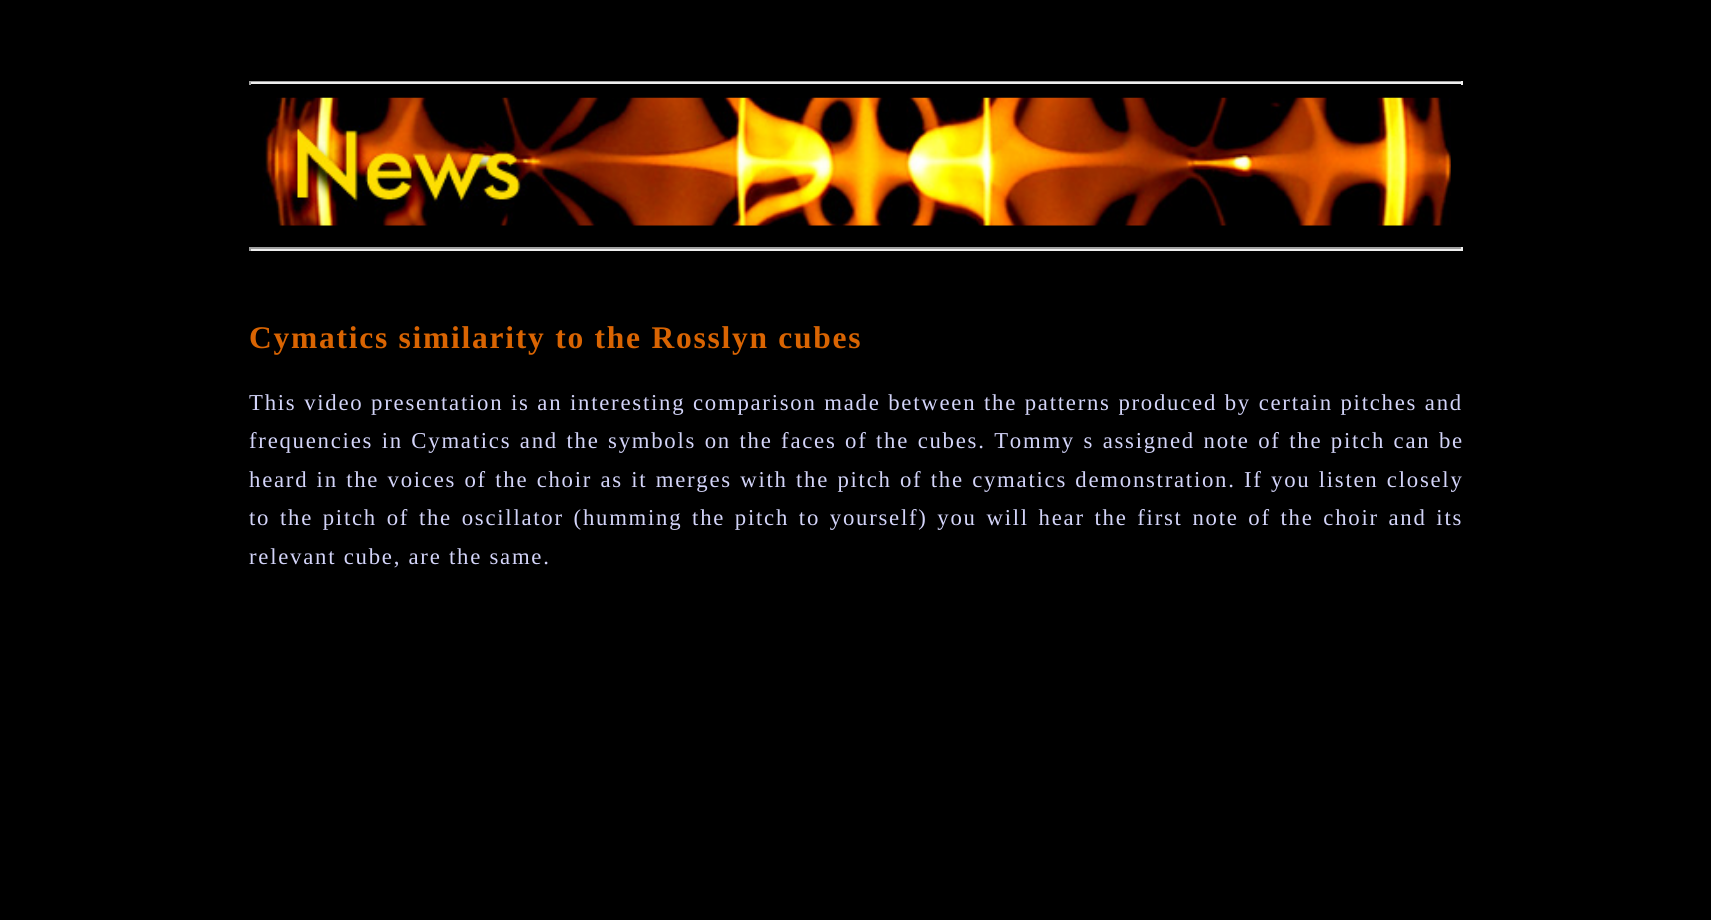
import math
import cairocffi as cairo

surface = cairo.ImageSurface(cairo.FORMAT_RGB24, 1711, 920)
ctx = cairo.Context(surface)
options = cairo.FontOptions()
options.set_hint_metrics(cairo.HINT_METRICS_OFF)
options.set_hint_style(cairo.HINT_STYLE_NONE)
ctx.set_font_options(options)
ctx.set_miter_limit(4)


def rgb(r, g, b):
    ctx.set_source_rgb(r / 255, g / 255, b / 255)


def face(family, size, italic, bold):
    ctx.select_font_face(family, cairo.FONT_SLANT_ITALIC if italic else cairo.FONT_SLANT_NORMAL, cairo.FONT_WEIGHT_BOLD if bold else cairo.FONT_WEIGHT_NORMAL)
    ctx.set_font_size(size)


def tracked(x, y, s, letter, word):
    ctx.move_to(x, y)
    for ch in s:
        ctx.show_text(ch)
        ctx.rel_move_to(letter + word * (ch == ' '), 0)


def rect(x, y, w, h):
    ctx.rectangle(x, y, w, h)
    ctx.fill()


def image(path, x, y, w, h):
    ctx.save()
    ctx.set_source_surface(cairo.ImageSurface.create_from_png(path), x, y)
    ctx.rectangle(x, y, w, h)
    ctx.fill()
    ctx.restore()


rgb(0, 0, 0)
ctx.paint()
rgb(159, 159, 159)
rect(249, 81, 1214, 1)
rgb(238, 238, 238)
rect(1461, 81, 2, 4)
rect(249, 82, 1214, 2)
rgb(159, 159, 159)
rect(249, 81, 2, 4)
image('image0.png', 262, 97, 1189, 129)
rect(249, 247, 1214, 2)
rgb(238, 238, 238)
rect(1461, 247, 2, 4)
rect(249, 249, 1214, 2)
rgb(159, 159, 159)
rect(249, 247, 2, 4)
face('Liberation Serif', 31.5, 0, 1)
rgb(217, 100, 2)
tracked(249, 348, 'Cymatics similarity to the Rosslyn cubes', 1.75, 0)
face('Liberation Serif', 22.75, 0, 0)
rgb(211, 212, 249)
tracked(249, 410, 'This video presentation is an interesting comparison made between the patterns produced by certain pitches and', 1.75, 0.25)
tracked(249, 448, 'frequencies in Cymatics and the symbols on the faces of the cubes. Tommy s assigned note of the pitch can be', 1.75, 1.1)
tracked(249, 487, 'heard in the voices of the choir as it merges with the pitch of the cymatics demonstration. If you listen closely', 1.75, 0.9)
tracked(249, 525, 'to the pitch of the oscillator (humming the pitch to yourself) you will hear the first note of the choir and its', 1.75, 2.3)
tracked(249, 564, 'relevant cube, are the same.', 1.75, 0)
surface.write_to_png('render.png')
